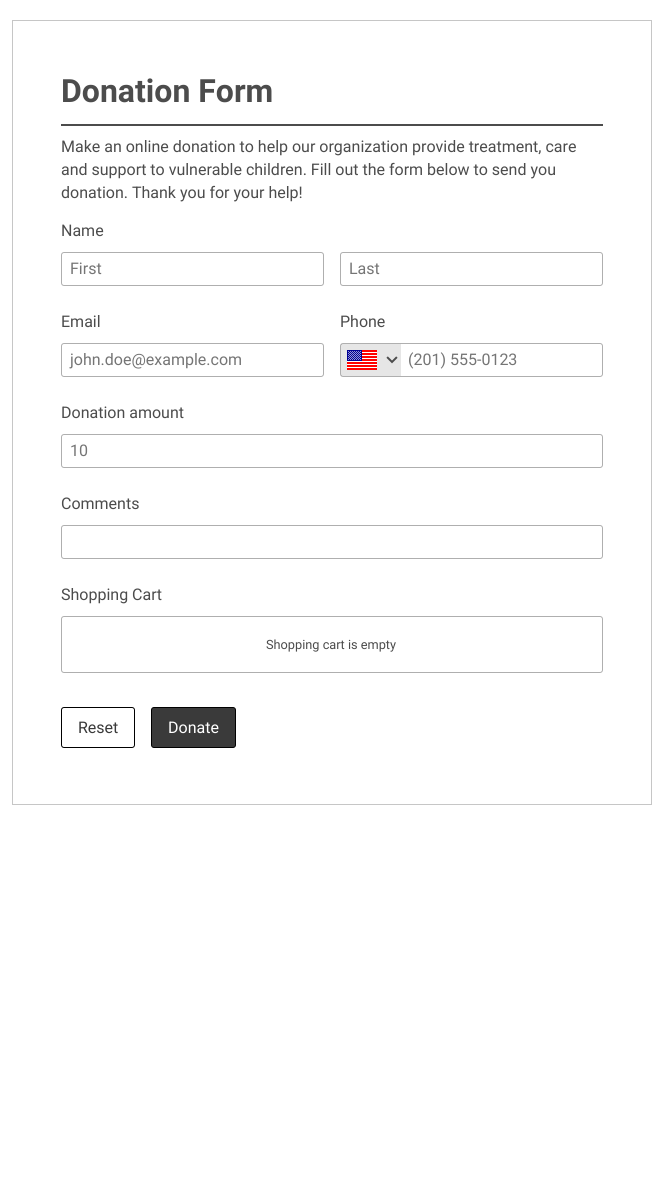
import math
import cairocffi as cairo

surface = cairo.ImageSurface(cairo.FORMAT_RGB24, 663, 1181)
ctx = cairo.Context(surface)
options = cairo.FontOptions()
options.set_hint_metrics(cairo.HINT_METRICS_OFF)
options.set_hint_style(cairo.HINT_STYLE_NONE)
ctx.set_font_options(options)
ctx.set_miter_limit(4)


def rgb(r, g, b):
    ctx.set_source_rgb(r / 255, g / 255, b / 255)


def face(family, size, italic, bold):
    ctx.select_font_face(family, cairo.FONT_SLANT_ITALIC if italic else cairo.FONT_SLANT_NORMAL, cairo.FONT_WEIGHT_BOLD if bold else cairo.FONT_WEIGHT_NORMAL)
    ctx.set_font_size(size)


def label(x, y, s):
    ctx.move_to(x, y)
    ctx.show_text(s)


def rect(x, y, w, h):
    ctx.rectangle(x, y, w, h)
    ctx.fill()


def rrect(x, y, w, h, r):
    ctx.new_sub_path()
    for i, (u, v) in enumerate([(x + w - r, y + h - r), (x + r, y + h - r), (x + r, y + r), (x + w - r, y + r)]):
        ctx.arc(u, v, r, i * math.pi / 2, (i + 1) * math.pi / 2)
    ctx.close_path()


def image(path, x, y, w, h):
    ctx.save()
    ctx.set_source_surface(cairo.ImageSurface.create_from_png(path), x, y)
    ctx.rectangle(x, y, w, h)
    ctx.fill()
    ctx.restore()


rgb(255, 255, 255)
ctx.paint()
ctx.rectangle(12.5, 20.5, 639, 784)
rgb(198, 198, 198)
ctx.set_line_width(1)
ctx.stroke()
face('Roboto', 32, 0, 1)
rgb(76, 76, 76)
label(61, 102, 'Donation Form')
rect(61, 124, 542, 2)
face('Roboto', 16, 0, 0)
label(61, 152, 'Make an online donation to help our organization provide treatment, care')
label(61, 175, 'and support to vulnerable children. Fill out the form below to send you')
label(61, 198, 'donation. Thank you for your help!')
label(61, 236, 'Name')
rrect(61.5, 252.5, 262, 33, 2.5)
rgb(175, 175, 175)
ctx.stroke()
rgb(117, 117, 117)
label(70, 274, 'First')
rrect(340.5, 252.5, 262, 33, 2.5)
rgb(175, 175, 175)
ctx.stroke()
rgb(117, 117, 117)
label(349, 274, 'Last')
rgb(76, 76, 76)
label(61, 327, 'Email')
rrect(61.5, 343.5, 262, 33, 2.5)
rgb(175, 175, 175)
ctx.stroke()
rgb(117, 117, 117)
label(70, 365, 'john.doe@example.com')
rgb(76, 76, 76)
label(340, 327, 'Phone')
rrect(340.5, 343.5, 262, 33, 2.5)
rgb(175, 175, 175)
ctx.stroke()
ctx.set_source_rgba(0, 0, 0, 0.1)
rect(341, 344, 60, 32)
image('image0.png', 347, 350, 30, 20)
image('image1.png', 386, 356, 12, 8)
rgb(117, 117, 117)
label(408, 365, '(201) 555-0123')
rgb(76, 76, 76)
label(61, 418, 'Donation amount')
rrect(61.5, 434.5, 541, 33, 2.5)
rgb(175, 175, 175)
ctx.stroke()
rgb(117, 117, 117)
label(70, 456, '10')
rgb(76, 76, 76)
label(61, 509, 'Comments')
rrect(61.5, 525.5, 541, 33, 2.5)
rgb(175, 175, 175)
ctx.stroke()
rgb(76, 76, 76)
label(61, 600, 'Shopping Cart')
rrect(61.5, 616.5, 541, 56, 2.5)
rgb(175, 175, 175)
ctx.stroke()
face('Roboto', 12.75, 0, 0)
rgb(76, 76, 76)
label(266, 649, 'Shopping cart is empty')
rrect(61.5, 707.5, 73, 40, 2.5)
rgb(0, 0, 0)
ctx.stroke()
face('Roboto', 16, 0, 0)
rgb(58, 58, 58)
label(78, 733, 'Reset')
rrect(151.5, 707.5, 84, 40, 2.5)
ctx.fill_preserve()
rgb(0, 0, 0)
ctx.stroke()
rgb(255, 255, 255)
label(168, 733, 'Donate')
surface.write_to_png('render.png')
